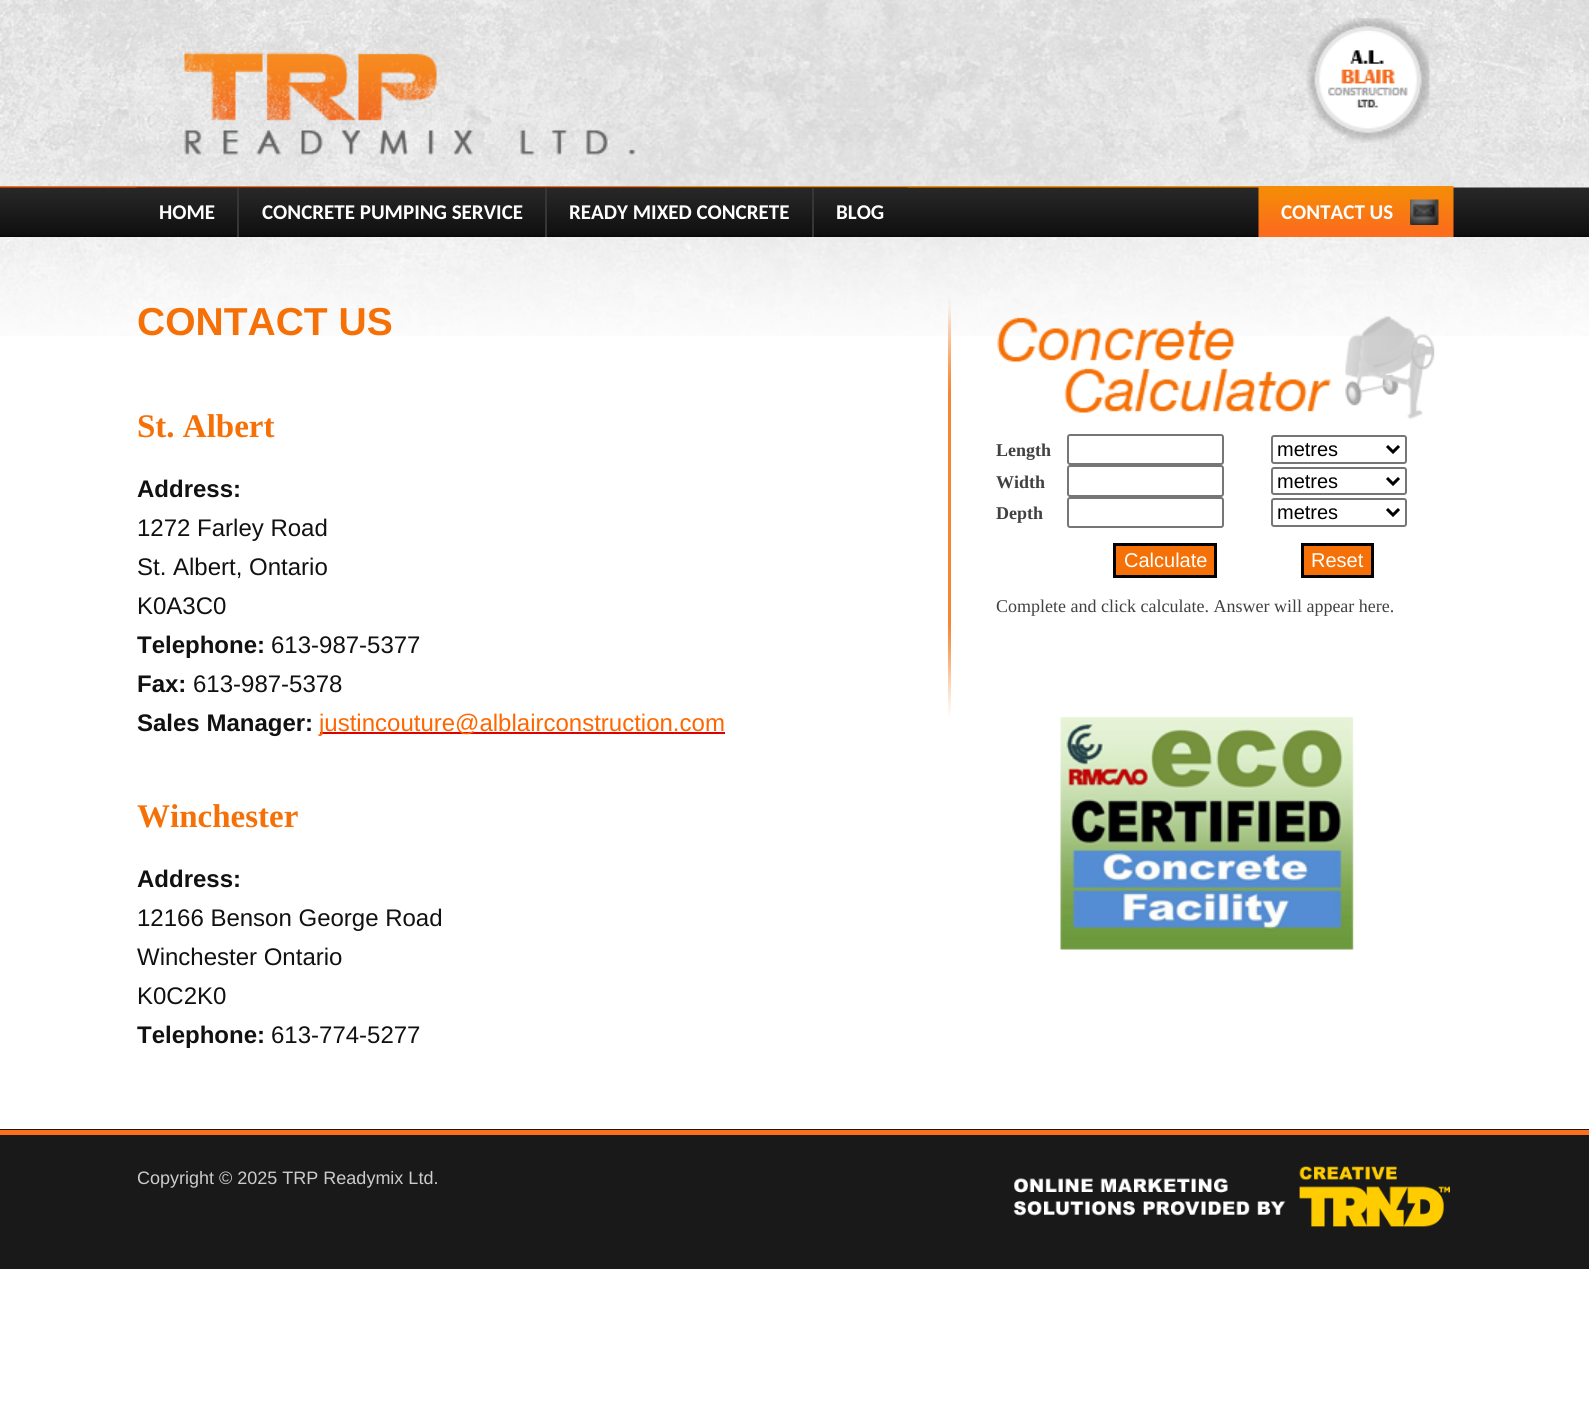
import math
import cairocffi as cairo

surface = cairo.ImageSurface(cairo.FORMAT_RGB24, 1589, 1411)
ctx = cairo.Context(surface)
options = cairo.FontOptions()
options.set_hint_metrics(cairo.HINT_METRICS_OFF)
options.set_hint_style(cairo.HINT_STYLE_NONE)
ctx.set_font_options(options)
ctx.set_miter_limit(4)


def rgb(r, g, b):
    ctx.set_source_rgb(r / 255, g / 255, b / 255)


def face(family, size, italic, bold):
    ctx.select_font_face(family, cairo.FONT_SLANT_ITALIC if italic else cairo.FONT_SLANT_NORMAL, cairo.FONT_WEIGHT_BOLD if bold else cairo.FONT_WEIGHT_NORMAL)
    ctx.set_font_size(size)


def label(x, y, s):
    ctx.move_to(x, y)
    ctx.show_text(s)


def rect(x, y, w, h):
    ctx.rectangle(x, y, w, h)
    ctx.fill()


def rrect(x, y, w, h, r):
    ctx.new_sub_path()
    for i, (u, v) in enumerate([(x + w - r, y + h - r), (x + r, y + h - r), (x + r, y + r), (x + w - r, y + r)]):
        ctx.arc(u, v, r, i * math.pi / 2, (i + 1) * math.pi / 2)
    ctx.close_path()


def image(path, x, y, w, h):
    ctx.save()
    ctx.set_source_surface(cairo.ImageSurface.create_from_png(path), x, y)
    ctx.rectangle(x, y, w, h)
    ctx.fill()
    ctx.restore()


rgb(255, 255, 255)
ctx.paint()
image('image0.png', 0, 0, 1589, 336)
image('image1.png', 184, 52, 451, 103)
image('image2.png', 1306, 18, 124, 125)
image('image3.png', 0, 186, 1259, 2)
image('image4.png', 0, 187, 1589, 50)
image('image5.png', 136, 187, 101, 1)
face('Carlito', 21, 0, 1)
rgb(255, 255, 255)
label(159, 219, 'HOME')
image('image6.png', 237, 187, 308, 1)
rgb(54, 54, 54)
rect(237, 188, 2, 49)
rgb(255, 255, 255)
label(262, 219, 'CONCRETE PUMPING SERVICE')
image('image7.png', 544, 187, 268, 1)
rgb(54, 54, 54)
rect(545, 188, 2, 49)
rgb(255, 255, 255)
label(569, 219, 'READY MIXED CONCRETE')
image('image8.png', 811, 187, 97, 1)
rgb(54, 54, 54)
rect(812, 188, 2, 49)
rgb(255, 255, 255)
label(836, 219, 'BLOG')
image('image9.png', 1258, 186, 196, 51)
label(1281, 219, 'CONTACT US')
image('image10.png', 1410, 199, 29, 26)
image('image11.png', 948, 298, 3, 419)
face('Liberation Sans', 39, 0, 1)
rgb(245, 113, 7)
label(137, 335, 'CONTACT US')
face('Liberation Serif', 33, 0, 1)
label(137, 437, 'St. Albert')
face('Liberation Sans', 24, 0, 1)
rgb(17, 17, 17)
label(137, 497, 'Address:')
face('Liberation Sans', 24, 0, 0)
label(137, 536, '1272 Farley Road')
label(137, 575, 'St. Albert, Ontario')
label(137, 614, 'K0A3C0')
ctx.save()
ctx.rectangle(137, 290, 1317, 780)
ctx.clip()
face('Liberation Sans', 24, 0, 1)
label(137, 653, 'Telephone:')
ctx.restore()
label(271, 653, '613-987-5377')
face('Liberation Sans', 24, 0, 1)
label(137, 692, 'Fax:')
face('Liberation Sans', 24, 0, 0)
label(193, 692, '613-987-5378')
face('Liberation Sans', 24, 0, 1)
label(137, 731, 'Sales Manager:')
rgb(221, 0, 0)
rect(320, 732, 405, 2)
face('Liberation Sans', 24, 0, 0)
rgb(255, 102, 0)
label(319, 731, 'justincouture@alblairconstruction.com')
face('Liberation Serif', 33, 0, 1)
rgb(245, 113, 7)
label(137, 827, 'Winchester')
face('Liberation Sans', 24, 0, 1)
rgb(17, 17, 17)
label(137, 887, 'Address:')
face('Liberation Sans', 24, 0, 0)
label(137, 926, '12166 Benson George Road')
label(137, 965, 'Winchester Ontario')
label(137, 1004, 'K0C2K0')
ctx.save()
ctx.rectangle(137, 290, 1317, 780)
ctx.clip()
face('Liberation Sans', 24, 0, 1)
label(137, 1043, 'Telephone:')
ctx.restore()
label(271, 1043, '613-774-5277')
image('image12.png', 997, 316, 438, 103)
face('Liberation Serif', 18, 0, 1)
rgb(65, 65, 65)
label(996, 456, 'Length')
rrect(1068, 435, 155, 29, 2)
rgb(118, 118, 118)
ctx.stroke()
rrect(1272, 436, 134, 27, 2)
ctx.stroke()
ctx.new_path()
ctx.move_to(1387, 446)
ctx.line_to(1393, 452)
ctx.line_to(1399, 446)
rgb(0, 0, 0)
ctx.set_line_width(3)
ctx.stroke()
face('Liberation Sans', 20, 0, 0)
label(1277, 456, 'metres')
face('Liberation Serif', 18, 0, 1)
rgb(65, 65, 65)
label(996, 488, 'Width')
rrect(1068, 466, 155, 30, 2)
rgb(118, 118, 118)
ctx.set_line_width(2)
ctx.stroke()
rrect(1272, 468, 134, 26, 2)
ctx.stroke()
ctx.new_path()
ctx.move_to(1387, 478)
ctx.line_to(1393, 484)
ctx.line_to(1399, 478)
rgb(0, 0, 0)
ctx.set_line_width(3)
ctx.stroke()
face('Liberation Sans', 20, 0, 0)
label(1277, 488, 'metres')
face('Liberation Serif', 18, 0, 1)
rgb(65, 65, 65)
label(996, 519, 'Depth')
rrect(1068, 498, 155, 29, 2)
rgb(118, 118, 118)
ctx.set_line_width(2)
ctx.stroke()
rrect(1272, 499, 134, 27, 2)
ctx.stroke()
ctx.new_path()
ctx.move_to(1387, 509)
ctx.line_to(1393, 515)
ctx.line_to(1399, 509)
rgb(0, 0, 0)
ctx.set_line_width(3)
ctx.stroke()
face('Liberation Sans', 20, 0, 0)
label(1277, 519, 'metres')
rgb(245, 113, 7)
ctx.rectangle(1114.5, 544.5, 101, 32)
ctx.fill_preserve()
rgb(0, 0, 0)
ctx.stroke()
rgb(255, 255, 255)
label(1124, 567, 'Calculate')
rgb(245, 113, 7)
ctx.rectangle(1302.5, 544.5, 70, 32)
ctx.fill_preserve()
rgb(0, 0, 0)
ctx.stroke()
rgb(255, 255, 255)
label(1311, 567, 'Reset')
face('Liberation Serif', 18, 0, 0)
rgb(65, 65, 65)
label(996, 612, 'Complete and click calculate. Answer will appear here.')
image('image13.png', 1060, 716, 294, 234)
rgb(25, 25, 25)
rect(0, 1129, 1589, 140)
rgb(251, 112, 26)
rect(0, 1130, 1589, 5)
face('Liberation Sans', 18, 0, 0)
rgb(205, 204, 204)
label(137, 1184, 'Copyright © 2025 TRP Readymix Ltd.')
image('image14.png', 1013, 1166, 437, 61)
surface.write_to_png('render.png')
